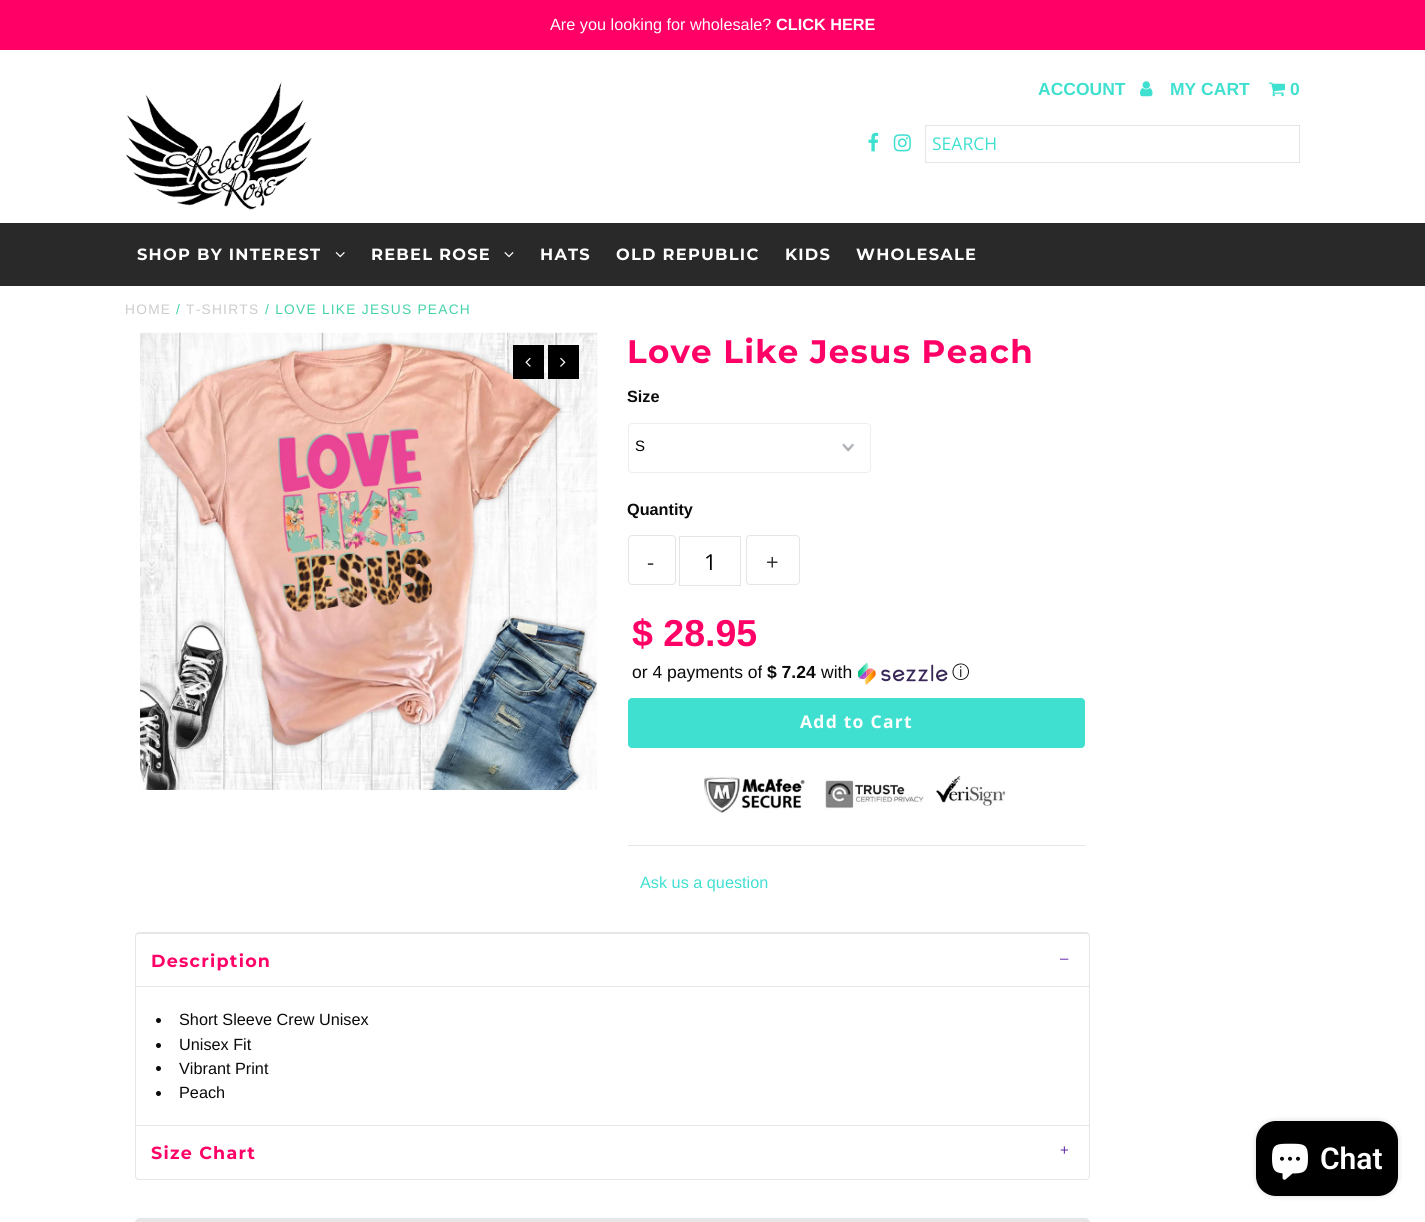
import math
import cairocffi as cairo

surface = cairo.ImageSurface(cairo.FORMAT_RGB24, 1425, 1222)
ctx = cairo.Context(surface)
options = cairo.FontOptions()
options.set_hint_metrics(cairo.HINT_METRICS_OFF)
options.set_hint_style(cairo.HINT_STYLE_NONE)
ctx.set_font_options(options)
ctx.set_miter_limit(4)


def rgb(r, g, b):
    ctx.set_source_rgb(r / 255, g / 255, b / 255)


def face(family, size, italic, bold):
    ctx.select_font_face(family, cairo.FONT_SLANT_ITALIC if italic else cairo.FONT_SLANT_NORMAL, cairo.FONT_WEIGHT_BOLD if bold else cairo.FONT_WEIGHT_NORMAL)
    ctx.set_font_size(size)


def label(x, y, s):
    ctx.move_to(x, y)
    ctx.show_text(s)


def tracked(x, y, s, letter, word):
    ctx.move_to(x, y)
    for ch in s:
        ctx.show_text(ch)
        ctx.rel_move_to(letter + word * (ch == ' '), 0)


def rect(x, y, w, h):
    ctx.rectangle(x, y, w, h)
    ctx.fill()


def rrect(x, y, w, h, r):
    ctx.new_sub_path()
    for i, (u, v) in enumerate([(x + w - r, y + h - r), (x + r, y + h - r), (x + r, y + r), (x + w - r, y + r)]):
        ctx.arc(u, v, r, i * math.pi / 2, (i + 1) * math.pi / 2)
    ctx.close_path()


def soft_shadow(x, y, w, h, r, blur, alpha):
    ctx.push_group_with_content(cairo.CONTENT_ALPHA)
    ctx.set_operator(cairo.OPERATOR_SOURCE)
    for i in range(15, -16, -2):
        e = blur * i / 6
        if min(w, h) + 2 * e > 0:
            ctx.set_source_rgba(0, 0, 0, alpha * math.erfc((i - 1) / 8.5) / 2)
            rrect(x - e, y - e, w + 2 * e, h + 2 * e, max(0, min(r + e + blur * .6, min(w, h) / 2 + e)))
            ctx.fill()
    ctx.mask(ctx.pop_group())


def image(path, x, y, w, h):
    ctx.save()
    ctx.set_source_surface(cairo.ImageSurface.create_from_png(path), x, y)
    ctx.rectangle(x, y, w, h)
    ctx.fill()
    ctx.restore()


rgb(255, 255, 255)
ctx.paint()
rgb(255, 0, 102)
rect(0, 0, 1425, 50)
face('Liberation Sans', 16.25, 0, 0)
rgb(255, 255, 255)
label(550, 30, 'Are you looking for wholesale?')
face('Liberation Sans', 16.25, 0, 1)
label(776, 30, 'CLICK HERE')
image('image0.png', 126, 82, 186, 128)
face('Liberation Sans', 17.5, 0, 1)
rgb(64, 224, 208)
label(1038, 95, 'ACCOUNT')
image('image1.png', 1140, 81, 13, 16)
label(1170, 95, 'MY CART')
image('image2.png', 1268, 82, 17, 15)
label(1290, 95, '0')
image('image3.png', 868, 132, 11, 20)
image('image4.png', 893, 134, 18, 18)
ctx.rectangle(925.5, 125.5, 374, 37)
rgb(229, 229, 229)
ctx.set_line_width(1)
ctx.stroke()
face('Open Sans', 17.5, 0, 0)
rgb(64, 224, 208)
label(932, 150, 'SEARCH')
rgb(41, 41, 41)
rect(0, 223, 1425, 63)
face('Montserrat', 16.25, 0, 1)
rgb(255, 255, 255)
tracked(137, 260, 'SHOP BY INTEREST', 1.25, 0)
image('image5.png', 335, 252, 10, 6)
tracked(371, 260, 'REBEL ROSE', 1.25, 0)
image('image6.png', 504, 252, 10, 6)
tracked(540, 260, 'HATS', 1.25, 0)
tracked(616, 260, 'OLD REPUBLIC', 1.25, 0)
tracked(785, 260, 'KIDS', 1.25, 0)
tracked(856, 260, 'WHOLESALE', 1.25, 0)
face('Liberation Sans', 13.75, 0, 0)
rgb(204, 204, 204)
tracked(125, 314, 'HOME', 1.25, 0)
rgb(70, 210, 171)
tracked(176, 314, '/', 1.25, 0)
rgb(204, 204, 204)
tracked(186, 314, 'T-SHIRTS', 1.25, 0)
rgb(70, 210, 171)
tracked(265, 314, '/ LOVE LIKE JESUS PEACH', 1.25, 0)
image('image7.png', 140, 332, 458, 458)
rgb(0, 0, 0)
rect(513, 345, 31, 34)
image('image8.png', 525, 357, 6, 10)
rect(548, 345, 31, 34)
image('image9.png', 560, 357, 6, 10)
face('Montserrat', 32.5, 0, 1)
rgb(255, 0, 102)
tracked(627, 363, 'Love Like Jesus Peach', 1.25, 0)
rgb(229, 229, 229)
rect(628, 845, 457, 1)
face('Liberation Sans', 16.25, 0, 1)
rgb(10, 10, 10)
label(627, 402, 'Size')
image('image10.png', 842, 443, 12, 9)
rrect(628.5, 423.5, 242, 49, 3.5)
rgb(238, 238, 238)
ctx.stroke()
face('Liberation Sans', 15, 0, 0)
rgb(0, 0, 0)
label(635, 451, 'S')
face('Liberation Sans', 16.25, 0, 1)
rgb(10, 10, 10)
label(627, 515, 'Quantity')
rrect(628.5, 535.5, 47, 49, 3.5)
rgb(229, 229, 229)
ctx.stroke()
face('Open Sans', 22, 0, 0)
rgb(51, 51, 51)
tracked(647, 570, '-', 1.25, 0)
ctx.rectangle(679.5, 536.5, 61, 49)
rgb(229, 229, 229)
ctx.stroke()
rgb(0, 0, 0)
label(704, 570, '1')
rrect(746.5, 535.5, 53, 49, 3.5)
rgb(229, 229, 229)
ctx.stroke()
rgb(51, 51, 51)
tracked(766, 570, '+', 1.25, 0)
face('Liberation Sans', 37.5, 0, 1)
rgb(255, 0, 102)
label(632, 646, '$ 28.95')
face('Liberation Sans', 17.5, 0, 0)
rgb(10, 10, 10)
label(632, 678, 'or 4 payments of')
face('Liberation Sans', 17.5, 0, 1)
label(767, 678, '$ 7.24')
face('Liberation Sans', 17.5, 0, 0)
label(821, 678, 'with')
image('image11.png', 858, 663, 90, 22)
face('WenQuanYi Zen Hei Medium', 17.5, 0, 0)
label(952, 678, 'ⓘ')
rgb(64, 224, 208)
rrect(628, 698, 457, 50, 4)
ctx.fill()
face('Open Sans', 17.5, 0, 1)
rgb(255, 255, 255)
tracked(800, 728, 'Add to Cart', 1.25, 0)
image('image12.png', 704, 775, 302, 38)
face('Liberation Sans', 16.25, 0, 0)
rgb(64, 224, 208)
label(640, 888, 'Ask us a question')
rgb(230, 230, 230)
ctx.set_fill_rule(cairo.FILL_RULE_EVEN_ODD)
ctx.new_path()
ctx.move_to(139, 932)
ctx.line_to(1086, 932)
ctx.curve_to(1088, 932, 1090, 934, 1090, 936)
ctx.line_to(1090, 986)
ctx.line_to(135, 986)
ctx.line_to(135, 936)
ctx.curve_to(135, 934, 137, 932, 139, 932)
ctx.close_path()
ctx.move_to(139, 934)
ctx.line_to(1086, 934)
ctx.curve_to(1088, 934, 1089, 935, 1089, 936)
ctx.line_to(1089, 986)
ctx.line_to(136, 986)
ctx.line_to(136, 936)
ctx.curve_to(136, 935, 137, 934, 139, 934)
ctx.close_path()
ctx.fill()
face('Montserrat', 17.5, 0, 1)
rgb(255, 0, 102)
tracked(151, 967, 'Description', 1.25, 0)
face('Liberation Sans', 15, 0, 0)
rgb(104, 46, 173)
label(1060, 963, '–')
rgb(230, 230, 230)
rect(135, 986, 955, 1)
rect(1089, 986, 1, 139)
rect(135, 986, 1, 139)
rgb(10, 10, 10)
ctx.new_path()
ctx.arc(158.5, 1020.5, 2.5, 0, 2 * math.pi)
ctx.fill()
face('Liberation Sans', 16.25, 0, 0)
label(179, 1025, 'Short Sleeve Crew Unisex')
ctx.new_path()
ctx.arc(158.5, 1045.5, 2.5, 0, 2 * math.pi)
ctx.fill()
label(179, 1050, 'Unisex Fit')
ctx.new_path()
ctx.arc(158.5, 1068.5, 2.5, 0, 2 * math.pi)
ctx.fill()
label(179, 1074, 'Vibrant Print')
ctx.new_path()
ctx.arc(158.5, 1093.5, 2.5, 0, 2 * math.pi)
ctx.fill()
label(179, 1098, 'Peach')
ctx.new_path()
ctx.move_to(135.5, 1125.5)
ctx.line_to(1089.5, 1125.5)
ctx.line_to(1089.5, 1176)
ctx.curve_to(1089.5, 1178, 1088, 1179.5, 1086, 1179.5)
ctx.line_to(139, 1179.5)
ctx.curve_to(137, 1179.5, 135.5, 1178, 135.5, 1176)
ctx.close_path()
rgb(230, 230, 230)
ctx.stroke()
face('Montserrat', 17.5, 0, 1)
rgb(255, 0, 102)
tracked(151, 1159, 'Size Chart', 1.25, 0)
face('Liberation Sans', 15, 0, 0)
rgb(104, 46, 173)
label(1060, 1155, '+')
rgb(230, 230, 230)
rrect(135, 1218, 955, 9, 5)
ctx.fill()
rgb(0, 0, 0)
soft_shadow(1256, 1121, 142, 75, 20, 3, 0.15)
rgb(0, 0, 0)
rrect(1256, 1121, 142, 75, 20)
ctx.fill()
image('image13.png', 1272, 1143, 36, 37)
face('Roboto SemiBold', 30, 0, 0)
rgb(255, 255, 255)
label(1320, 1169, 'Chat')
surface.write_to_png('render.png')
